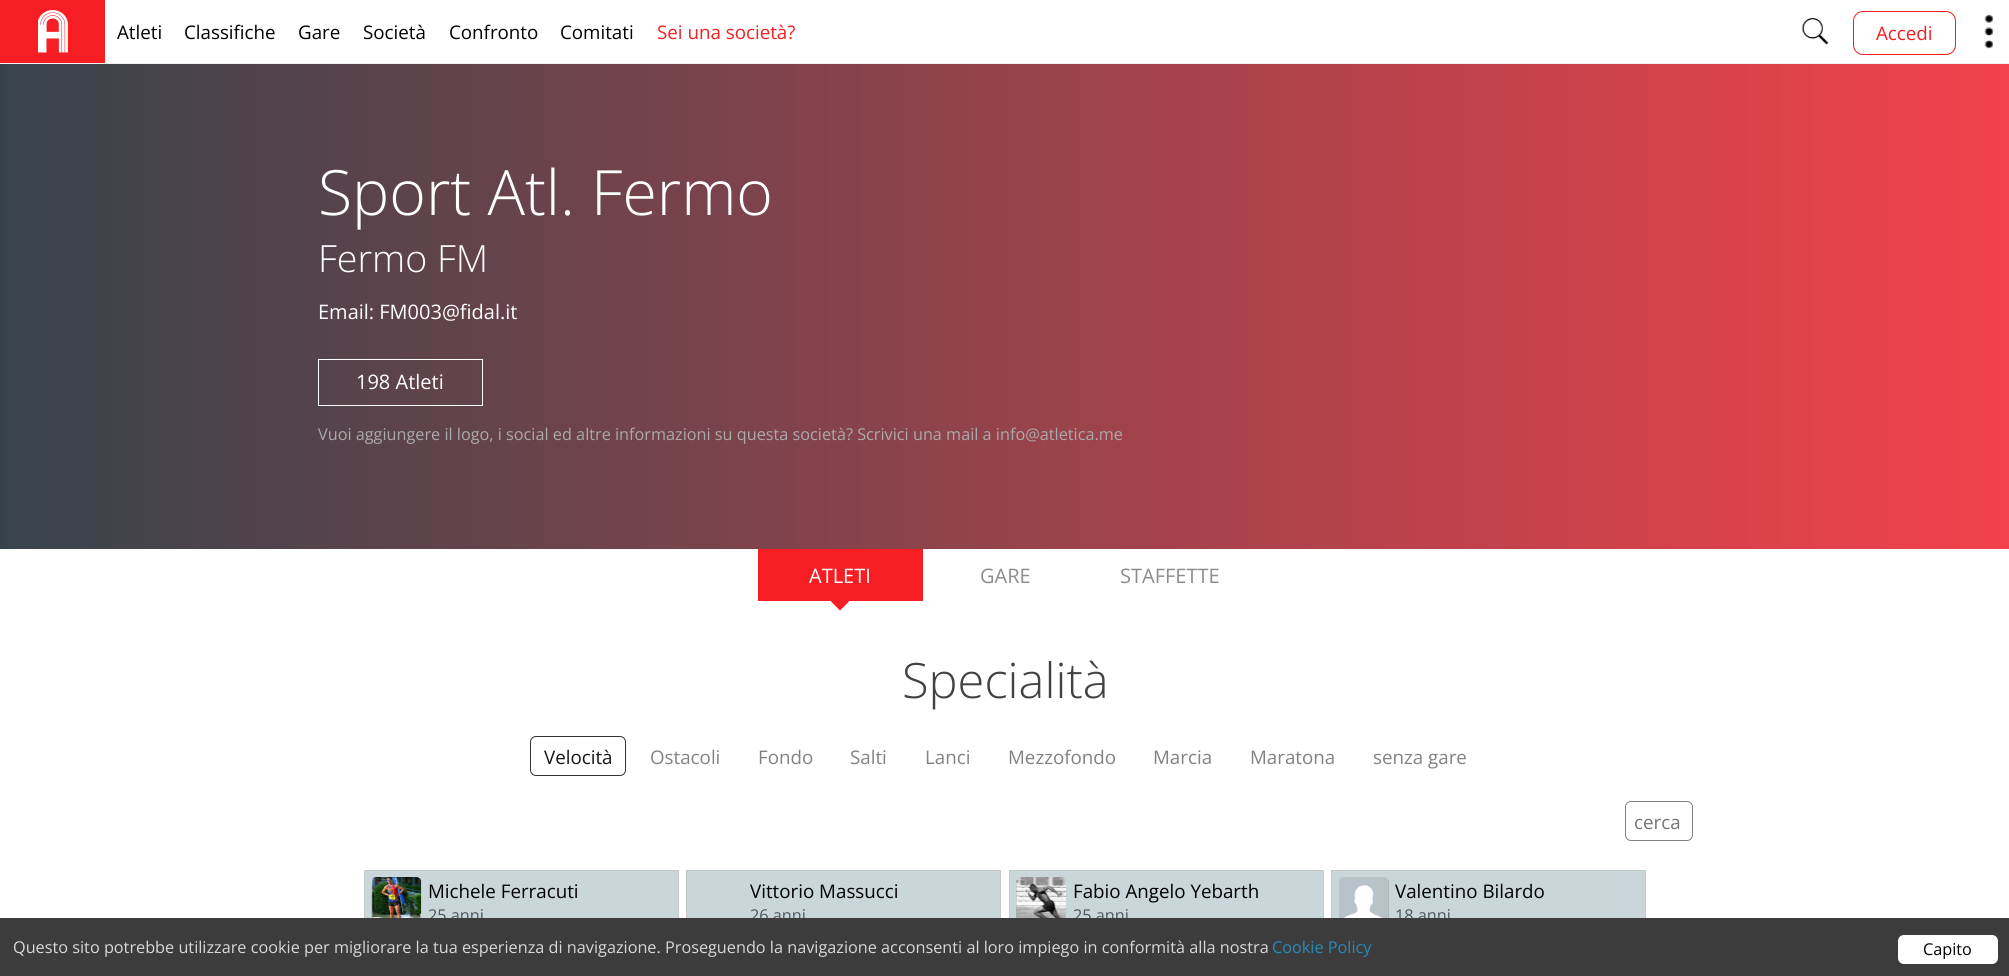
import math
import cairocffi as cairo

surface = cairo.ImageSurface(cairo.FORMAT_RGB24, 2009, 976)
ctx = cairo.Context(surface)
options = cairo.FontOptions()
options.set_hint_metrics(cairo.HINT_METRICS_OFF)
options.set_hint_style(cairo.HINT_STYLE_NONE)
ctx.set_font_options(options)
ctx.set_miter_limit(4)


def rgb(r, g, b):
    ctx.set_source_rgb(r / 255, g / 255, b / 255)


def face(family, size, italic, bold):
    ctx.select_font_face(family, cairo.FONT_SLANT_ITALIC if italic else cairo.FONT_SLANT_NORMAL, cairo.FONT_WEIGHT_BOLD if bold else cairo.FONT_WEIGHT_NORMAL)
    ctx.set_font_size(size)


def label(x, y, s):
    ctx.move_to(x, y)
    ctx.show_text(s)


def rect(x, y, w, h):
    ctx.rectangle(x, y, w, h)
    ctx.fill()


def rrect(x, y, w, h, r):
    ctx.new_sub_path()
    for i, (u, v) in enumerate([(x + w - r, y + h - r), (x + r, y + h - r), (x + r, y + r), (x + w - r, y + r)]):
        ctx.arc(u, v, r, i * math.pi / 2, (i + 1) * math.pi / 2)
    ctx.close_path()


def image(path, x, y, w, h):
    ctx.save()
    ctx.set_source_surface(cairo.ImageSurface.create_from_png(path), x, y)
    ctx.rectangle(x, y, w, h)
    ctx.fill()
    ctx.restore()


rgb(255, 255, 255)
ctx.paint()
rgb(240, 240, 240)
rect(0, 63, 2009, 1)
rgb(246, 30, 35)
rect(0, 0, 105, 63)
image('image0.png', 38, 10, 30, 43)
face('Open Sans', 18.75, 0, 0)
rgb(0, 0, 0)
label(117, 39, 'Atleti')
label(184, 39, 'Classifiche')
label(298, 39, 'Gare')
label(363, 39, 'Società')
label(449, 39, 'Confronto')
label(560, 39, 'Comitati')
rgb(246, 30, 35)
label(657, 39, 'Sei una società?')
image('image1.png', 1801, 18, 28, 27)
rrect(1853.5, 11.5, 102, 43, 9.5)
ctx.set_line_width(1)
ctx.stroke()
label(1876, 40, 'Accedi')
image('image2.png', 1984, 14, 11, 35)
gradient = cairo.LinearGradient(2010, 303, 0, 303)
gradient.add_color_stop_rgba(0, 0.953, 0.259, 0.294, 1)
gradient.add_color_stop_rgba(1, 0.216, 0.263, 0.294, 1)
ctx.set_source(gradient)
rect(0, 64, 2009, 485)
face('Open Sans Light', 62.5, 0, 0)
rgb(255, 255, 255)
label(318, 215, 'Sport Atl. Fermo')
face('Open Sans Light', 37.5, 0, 0)
label(318, 272, 'Fermo FM')
face('Open Sans', 20, 0, 0)
label(318, 319, 'Email: FM003@fidal.it')
ctx.rectangle(318.5, 359.5, 164, 46)
ctx.stroke()
label(356, 389, '198 Atleti')
face('Open Sans', 16.25, 0, 0)
rgb(170, 170, 170)
label(318, 440, 'Vuoi aggiungere il logo, i social ed altre informazioni su questa società? Scrivici una mail a info@atletica.me')
rgb(246, 30, 35)
rect(758, 549, 165, 52)
face('Open Sans', 20, 0, 0)
rgb(255, 255, 255)
label(809, 583, 'ATLETI')
rgb(246, 30, 35)
ctx.new_path()
ctx.move_to(840, 592.5)
ctx.line_to(849, 601.5)
ctx.line_to(840, 610.5)
ctx.line_to(831, 601.5)
ctx.close_path()
ctx.fill()
rgb(140, 140, 140)
label(980, 583, 'GARE')
label(1120, 583, 'STAFFETTE')
face('Open Sans Light', 48.75, 0, 0)
rgb(66, 66, 66)
label(902, 698, 'Specialità')
rrect(530.5, 736.5, 95, 39, 5.5)
rgb(51, 51, 51)
ctx.stroke()
face('Open Sans', 18.75, 0, 0)
rgb(20, 20, 20)
label(544, 764, 'Velocità')
rgb(130, 130, 130)
label(650, 764, 'Ostacoli')
label(758, 764, 'Fondo')
label(850, 764, 'Salti')
label(925, 764, 'Lanci')
label(1008, 764, 'Mezzofondo')
label(1153, 764, 'Marcia')
label(1250, 764, 'Maratona')
label(1373, 764, 'senza gare')
rrect(1625.5, 801.5, 67, 39, 5.5)
rgb(128, 128, 128)
ctx.stroke()
rgb(117, 117, 117)
label(1634, 829, 'cerca')
rgb(201, 215, 218)
rect(365, 871, 313, 47)
ctx.rectangle(364.5, 870.5, 314, 64)
rgb(200, 200, 200)
ctx.stroke()
rgb(161, 172, 174)
rrect(371, 878, 50, 50, 5)
ctx.fill()
image('image3.png', 371, 877, 51, 41)
rgb(0, 0, 0)
label(428, 898, 'Michele Ferracuti')
face('Open Sans', 16.25, 0, 0)
rgb(80, 86, 87)
label(428, 921, '25 anni')
rgb(201, 215, 218)
rect(687, 871, 313, 47)
ctx.rectangle(686.5, 870.5, 314, 64)
rgb(200, 200, 200)
ctx.stroke()
face('Open Sans', 18.75, 0, 0)
rgb(0, 0, 0)
label(750, 898, 'Vittorio Massucci')
face('Open Sans', 16.25, 0, 0)
rgb(80, 86, 87)
label(750, 921, '26 anni')
rgb(201, 215, 218)
rect(1010, 871, 313, 47)
ctx.rectangle(1009.5, 870.5, 314, 64)
rgb(200, 200, 200)
ctx.stroke()
rgb(161, 172, 174)
rrect(1016, 878, 50, 50, 5)
ctx.fill()
image('image4.png', 1016, 877, 50, 41)
face('Open Sans', 18.75, 0, 0)
rgb(0, 0, 0)
label(1073, 898, 'Fabio Angelo Yebarth')
face('Open Sans', 16.25, 0, 0)
rgb(80, 86, 87)
label(1073, 921, '25 anni')
rgb(201, 215, 218)
rect(1332, 871, 313, 47)
ctx.rectangle(1331.5, 870.5, 314, 64)
rgb(200, 200, 200)
ctx.stroke()
rgb(161, 172, 174)
rrect(1339, 878, 50, 50, 5)
ctx.fill()
image('image5.png', 1339, 877, 50, 41)
face('Open Sans', 18.75, 0, 0)
rgb(0, 0, 0)
label(1395, 898, 'Valentino Bilardo')
face('Open Sans', 16.25, 0, 0)
rgb(80, 86, 87)
label(1395, 921, '18 anni')
rgb(60, 60, 60)
rect(0, 918, 2009, 58)
rgb(216, 216, 216)
label(13, 953, 'Questo sito potrebbe utilizzare cookie per migliorare la tua esperienza di navigazione. Proseguendo la navigazione acconsenti al loro impiego in conformità alla nostra')
rgb(41, 137, 182)
label(1272, 953, 'Cookie Policy')
rgb(255, 255, 255)
rrect(1898, 935, 100, 29, 6)
ctx.fill()
rgb(0, 0, 0)
label(1923, 955, 'Capito')
surface.write_to_png('render.png')
